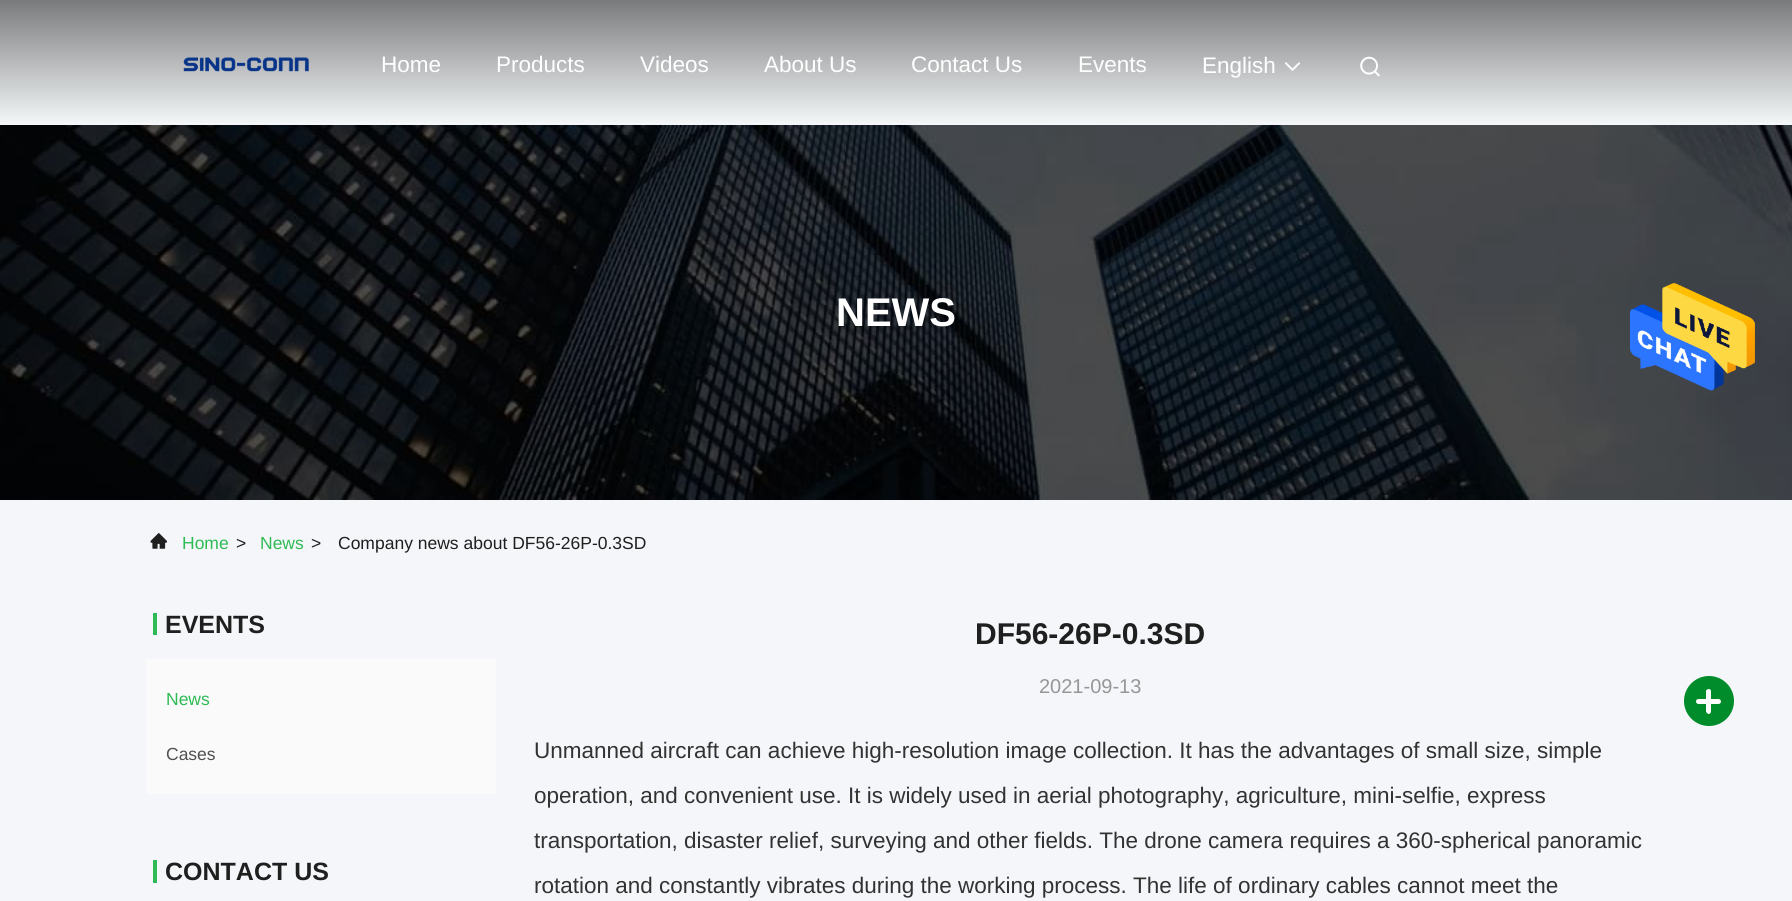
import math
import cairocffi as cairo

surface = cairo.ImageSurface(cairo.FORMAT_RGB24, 1792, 901)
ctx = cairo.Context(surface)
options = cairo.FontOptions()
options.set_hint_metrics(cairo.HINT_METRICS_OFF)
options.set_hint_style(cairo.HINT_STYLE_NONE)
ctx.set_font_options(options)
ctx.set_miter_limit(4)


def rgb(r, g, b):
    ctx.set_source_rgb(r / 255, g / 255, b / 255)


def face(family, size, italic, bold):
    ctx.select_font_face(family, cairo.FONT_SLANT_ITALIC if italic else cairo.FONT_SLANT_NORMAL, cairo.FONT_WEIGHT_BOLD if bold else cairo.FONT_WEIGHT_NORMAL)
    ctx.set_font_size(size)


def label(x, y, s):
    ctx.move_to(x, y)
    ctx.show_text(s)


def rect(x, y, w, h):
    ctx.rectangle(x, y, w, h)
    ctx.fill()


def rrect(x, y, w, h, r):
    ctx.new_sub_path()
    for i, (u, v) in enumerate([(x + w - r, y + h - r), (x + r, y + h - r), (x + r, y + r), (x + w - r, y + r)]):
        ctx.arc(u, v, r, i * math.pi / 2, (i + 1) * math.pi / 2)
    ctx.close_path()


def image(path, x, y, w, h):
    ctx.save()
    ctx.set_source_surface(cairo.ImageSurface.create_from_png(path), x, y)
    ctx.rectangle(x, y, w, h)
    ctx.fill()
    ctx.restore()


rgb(244, 246, 249)
ctx.paint()
gradient = cairo.LinearGradient(896, 0, 896, 125)
gradient.add_color_stop_rgba(0, 0.478, 0.482, 0.486, 1)
gradient.add_color_stop_rgba(1, 0.957, 0.969, 0.973, 1)
ctx.set_source(gradient)
rect(0, 0, 1792, 123)
image('image0.png', 183, 57, 126, 15)
face('Liberation Sans', 22.5, 0, 0)
rgb(255, 255, 255)
label(381, 72, 'Home')
label(496, 72, 'Products')
label(640, 72, 'Videos')
label(764, 72, 'About Us')
label(911, 72, 'Contact Us')
label(1078, 72, 'Events')
label(1202, 73, 'English')
image('image1.png', 1285, 62, 15, 9)
image('image2.png', 1360, 56, 20, 21)
image('image3.png', 0, 125, 1792, 375)
face('Liberation Sans', 40, 0, 1)
label(836, 326, 'NEWS')
image('image4.png', 150, 533, 18, 16)
face('Liberation Sans', 17.5, 0, 0)
rgb(46, 187, 85)
label(182, 549, 'Home')
rgb(31, 31, 31)
label(236, 549, '>')
rgb(46, 187, 85)
label(260, 549, 'News')
rgb(31, 31, 31)
label(311, 549, '>')
label(338, 549, 'Company news about DF56-26P-0.3SD')
rgb(46, 187, 85)
rect(153, 613, 4, 22)
face('Liberation Sans', 25, 0, 1)
rgb(31, 31, 31)
label(165, 633, 'EVENTS')
rgb(250, 250, 250)
rect(146, 659, 350, 135)
face('Liberation Sans', 17.5, 0, 0)
rgb(46, 187, 85)
label(166, 705, 'News')
rgb(80, 80, 80)
label(166, 760, 'Cases')
rgb(46, 187, 85)
rect(153, 860, 4, 23)
face('Liberation Sans', 25, 0, 1)
rgb(31, 31, 31)
label(165, 880, 'CONTACT US')
face('Liberation Sans', 30, 0, 1)
label(975, 644, 'DF56-26P-0.3SD')
face('Liberation Sans', 20, 0, 0)
rgb(150, 150, 150)
label(1039, 693, '2021-09-13')
face('Liberation Sans', 22.5, 0, 0)
rgb(50, 50, 50)
label(534, 758, 'Unmanned aircraft can achieve high-resolution image collection. It has the advantages of small size, simple')
label(534, 803, 'operation, and convenient use. It is widely used in aerial photography, agriculture, mini-selfie, express')
label(534, 848, 'transportation, disaster relief, surveying and other fields. The drone camera requires a 360-spherical panoramic')
label(534, 893, 'rotation and constantly vibrates during the working process. The life of ordinary cables cannot meet the')
image('image5.png', 1630, 283, 125, 108)
rgb(0, 140, 42)
ctx.arc(1709, 701, 25, 0, 2 * math.pi)
ctx.fill()
rgb(255, 255, 255)
rrect(1696, 699, 25, 5, 2.5)
ctx.fill()
ctx.new_path()
ctx.move_to(1711, 691)
ctx.line_to(1711, 711)
ctx.curve_to(1711, 712.5, 1710, 714, 1709, 714)
ctx.curve_to(1707.5, 714, 1706, 712.5, 1706, 711)
ctx.line_to(1706, 691)
ctx.curve_to(1706, 690, 1707.5, 689, 1709, 689)
ctx.curve_to(1710, 689, 1711, 690, 1711, 691)
ctx.close_path()
ctx.fill()
surface.write_to_png('render.png')
